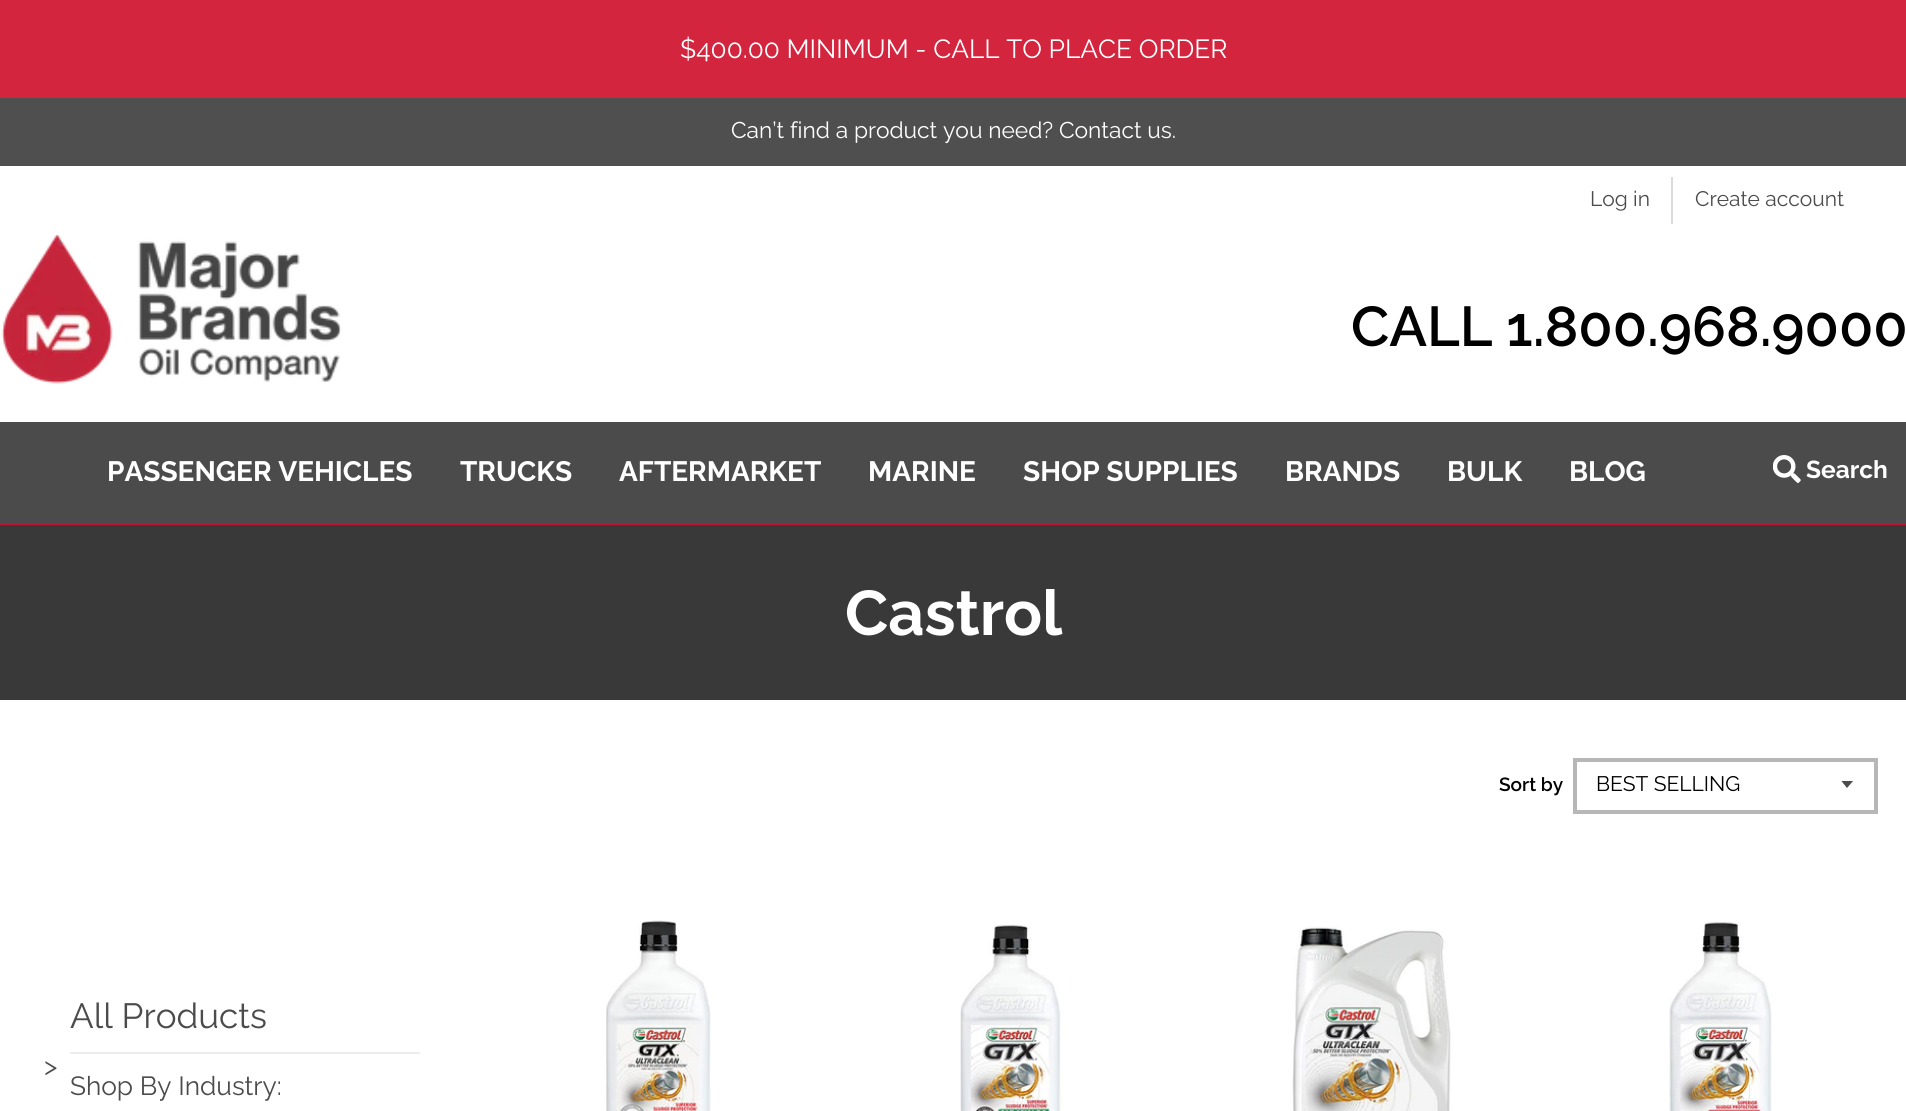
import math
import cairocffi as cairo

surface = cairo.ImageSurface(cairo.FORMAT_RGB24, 1906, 1111)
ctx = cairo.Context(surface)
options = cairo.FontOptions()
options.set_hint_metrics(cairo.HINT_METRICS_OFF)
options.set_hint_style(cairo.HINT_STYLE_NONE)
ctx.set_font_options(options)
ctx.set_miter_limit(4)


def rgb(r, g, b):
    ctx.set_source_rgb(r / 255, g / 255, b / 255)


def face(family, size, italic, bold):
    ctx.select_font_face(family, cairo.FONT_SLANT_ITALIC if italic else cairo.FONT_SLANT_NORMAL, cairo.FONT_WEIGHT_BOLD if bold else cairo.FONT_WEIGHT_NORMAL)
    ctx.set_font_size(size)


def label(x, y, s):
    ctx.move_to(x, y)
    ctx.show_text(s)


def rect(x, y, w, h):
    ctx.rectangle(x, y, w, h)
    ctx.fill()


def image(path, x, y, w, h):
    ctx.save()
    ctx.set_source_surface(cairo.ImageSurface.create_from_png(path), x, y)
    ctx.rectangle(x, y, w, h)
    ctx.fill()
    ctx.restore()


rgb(255, 255, 255)
ctx.paint()
rgb(212, 37, 63)
rect(0, 0, 1906, 98)
face('Raleway', 26.25, 0, 0)
rgb(255, 255, 255)
label(680, 58, '$400.00 MINIMUM - CALL TO PLACE ORDER')
rgb(79, 79, 79)
rect(0, 98, 1906, 68)
face('Raleway', 22.75, 0, 0)
rgb(255, 255, 255)
label(731, 138, 'Can’t find a product you need? Contact us.')
rgb(219, 219, 219)
rect(1671, 177, 2, 47)
face('Raleway', 21, 0, 0)
rgb(76, 75, 75)
label(1590, 206, 'Log in')
label(1695, 206, 'Create account')
rgb(191, 19, 56)
rect(0, 523, 1906, 2)
image('image0.png', 1, 235, 341, 149)
face('Raleway SemiBold', 56, 0, 0)
rgb(0, 0, 0)
label(1351, 346, 'CALL 1.800.968.9000')
rgb(76, 75, 75)
rect(0, 422, 1906, 101)
face('Raleway', 28, 0, 1)
rgb(255, 255, 255)
label(107, 481, 'PASSENGER VEHICLES')
label(460, 481, 'TRUCKS')
label(619, 481, 'AFTERMARKET')
label(868, 481, 'MARINE')
label(1023, 481, 'SHOP SUPPLIES')
label(1285, 481, 'BRANDS')
label(1447, 481, 'BULK')
label(1569, 481, 'BLOG')
image('image1.png', 1773, 455, 28, 28)
face('Raleway', 24.5, 0, 1)
label(1806, 478, 'Search')
rgb(57, 57, 57)
rect(0, 525, 1906, 175)
face('Raleway', 63, 0, 1)
rgb(255, 255, 255)
label(845, 635, 'Castrol')
face('Raleway SemiBold', 19, 0, 0)
rgb(0, 0, 0)
label(1499, 791, 'Sort by')
ctx.save()
ctx.rectangle(1841, 781, 14, 8)
ctx.clip()
rgb(76, 75, 75)
ctx.new_path()
ctx.move_to(1841, 780.5)
ctx.line_to(1847, 788)
ctx.line_to(1853.5, 780.5)
ctx.close_path()
ctx.fill()
ctx.restore()
ctx.rectangle(1575, 760, 301, 52)
rgb(183, 183, 183)
ctx.set_line_width(4)
ctx.stroke()
face('Raleway', 21, 0, 0)
rgb(0, 0, 0)
label(1596, 791, 'BEST SELLING')
rgb(237, 237, 237)
rect(70, 1052, 350, 2)
face('Raleway', 35, 0, 0)
rgb(76, 75, 75)
label(70, 1028, 'All Products')
face('Raleway', 26.25, 0, 0)
label(44, 1075, '>')
label(70, 1095, 'Shop By Industry:')
image('image2.png', 606, 920, 105, 191)
image('image3.png', 960, 924, 103, 187)
image('image4.png', 1292, 926, 159, 185)
image('image5.png', 1669, 922, 103, 189)
surface.write_to_png('render.png')
